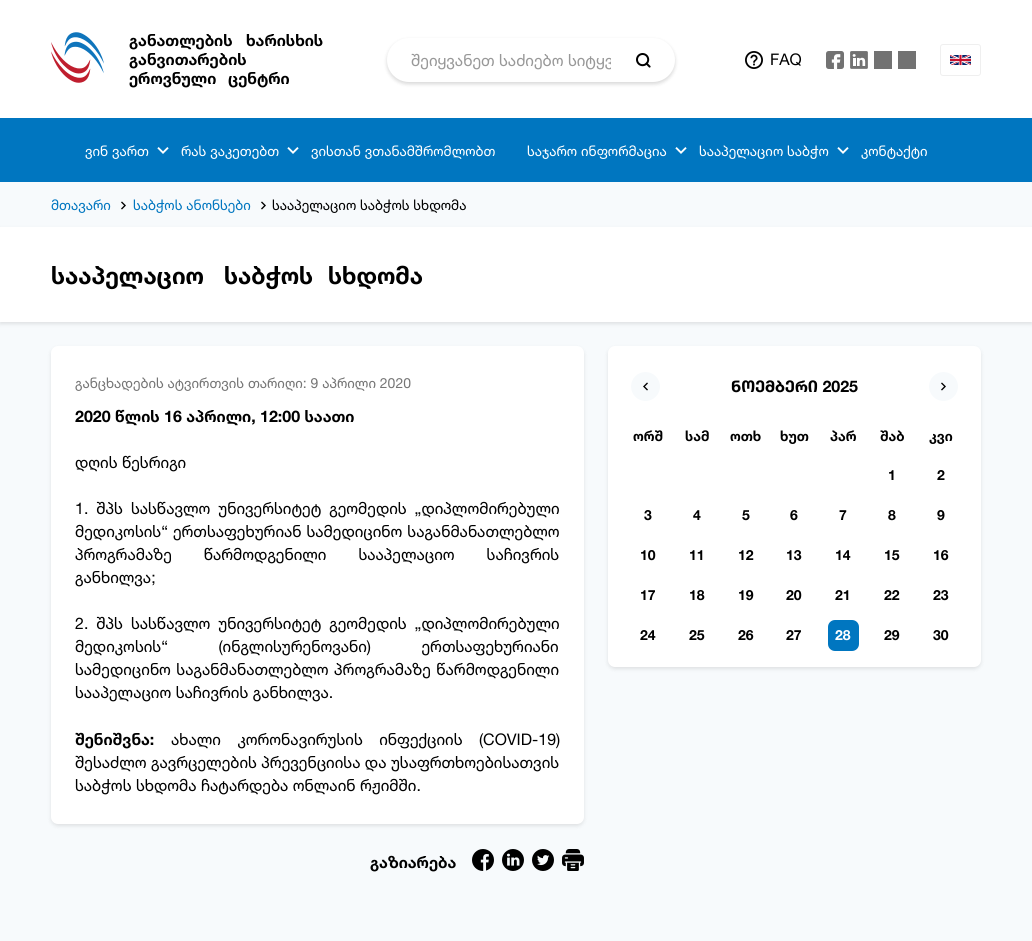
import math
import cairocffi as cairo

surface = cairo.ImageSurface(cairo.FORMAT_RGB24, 1032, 941)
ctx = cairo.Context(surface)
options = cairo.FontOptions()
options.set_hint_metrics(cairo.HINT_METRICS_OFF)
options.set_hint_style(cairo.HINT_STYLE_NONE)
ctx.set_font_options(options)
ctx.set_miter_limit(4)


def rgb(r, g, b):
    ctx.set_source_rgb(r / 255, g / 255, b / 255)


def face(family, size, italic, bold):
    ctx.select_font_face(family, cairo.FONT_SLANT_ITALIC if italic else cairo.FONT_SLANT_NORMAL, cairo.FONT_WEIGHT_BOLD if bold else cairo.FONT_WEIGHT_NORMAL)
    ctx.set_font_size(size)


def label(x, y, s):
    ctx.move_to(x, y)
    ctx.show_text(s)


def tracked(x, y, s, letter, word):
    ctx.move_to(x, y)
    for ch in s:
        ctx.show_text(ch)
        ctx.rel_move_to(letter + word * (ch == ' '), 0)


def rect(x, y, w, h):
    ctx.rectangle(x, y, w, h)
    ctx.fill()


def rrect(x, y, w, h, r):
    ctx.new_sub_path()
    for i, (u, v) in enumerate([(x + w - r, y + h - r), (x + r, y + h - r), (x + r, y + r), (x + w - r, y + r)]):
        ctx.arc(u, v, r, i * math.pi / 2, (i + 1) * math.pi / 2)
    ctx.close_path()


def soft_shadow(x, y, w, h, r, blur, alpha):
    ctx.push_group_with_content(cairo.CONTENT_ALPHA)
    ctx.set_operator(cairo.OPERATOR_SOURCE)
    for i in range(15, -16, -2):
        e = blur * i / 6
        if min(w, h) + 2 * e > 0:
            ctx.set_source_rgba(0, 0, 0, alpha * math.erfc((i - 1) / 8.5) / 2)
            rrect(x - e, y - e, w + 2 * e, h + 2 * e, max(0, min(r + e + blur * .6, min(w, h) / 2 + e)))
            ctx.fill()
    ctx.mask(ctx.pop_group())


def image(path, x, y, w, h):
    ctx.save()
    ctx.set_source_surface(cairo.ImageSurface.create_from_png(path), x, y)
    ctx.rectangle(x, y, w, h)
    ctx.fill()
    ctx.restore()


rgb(247, 250, 252)
ctx.paint()
rgb(255, 255, 255)
rect(0, 0, 1032, 118)
image('image0.png', 51, 32, 53, 51)
face('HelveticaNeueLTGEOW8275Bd', 16, 0, 1)
rgb(0, 0, 0)
label(129, 46, 'განათლების')
label(246, 46, 'ხარისხის')
label(129, 65, 'განვითარების')
label(129, 84, 'ეროვნული')
label(228, 84, 'ცენტრი')
rgb(0, 0, 0)
soft_shadow(387, 40, 288, 44, 22, 2, 0.16)
rgb(255, 255, 255)
rrect(387, 38, 288, 44, 22)
ctx.fill()
ctx.save()
ctx.rectangle(411, 50, 200, 20)
ctx.clip()
face('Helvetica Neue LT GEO', 16, 0, 0)
rgb(152, 152, 152)
label(411, 66, 'შეიყვანეთ საძიებო სიტყვ')
ctx.restore()
image('image1.png', 636, 53, 15, 15)
image('image2.png', 745, 51, 18, 18)
face('Helvetica Neue LT GEO', 16, 0, 0)
rgb(0, 0, 0)
label(770, 65, 'FAQ')
image('image3.png', 826, 51, 18, 18)
image('image4.png', 850, 51, 18, 18)
rgb(114, 114, 114)
rect(874, 51, 18, 18)
rect(898, 51, 18, 18)
rrect(940.5, 44.5, 40, 31, 2.5)
rgb(239, 239, 239)
ctx.set_line_width(1)
ctx.stroke()
image('image5.png', 950, 54, 21, 12)
rgb(0, 118, 192)
rect(0, 118, 1032, 64)
face('Helvetica Neue LT GEO', 14, 0, 0)
rgb(255, 255, 255)
label(85, 156, 'ვინ ვართ')
image('image6.png', 157, 147, 12, 7)
label(181, 156, 'რას ვაკეთებთ')
image('image6.png', 287, 147, 12, 7)
label(311, 156, 'ვისთან ვთანამშრომლობთ')
label(527, 156, 'საჯარო ინფორმაცია')
image('image6.png', 675, 147, 12, 7)
label(699, 156, 'სააპელაციო საბჭო')
image('image6.png', 837, 147, 12, 7)
label(861, 156, 'კონტაქტი')
rgb(0, 118, 192)
label(51, 210, 'მთავარი')
image('image7.png', 121, 201, 5, 9)
label(133, 210, 'საბჭოს ანონსები')
image('image7.png', 261, 201, 5, 9)
rgb(0, 0, 0)
label(272, 210, 'სააპელაციო საბჭოს სხდომა')
rgb(0, 0, 0)
soft_shadow(0, 229, 1032, 95, 0, 2, 0.1)
rgb(255, 255, 255)
rect(0, 227, 1032, 95)
face('HelveticaNeueLTGEOW8275Bd', 24, 0, 1)
rgb(0, 0, 0)
label(51, 284, 'სააპელაციო')
label(224, 284, 'საბჭოს')
label(328, 284, 'სხდომა')
rgb(0, 0, 0)
soft_shadow(51, 348, 533, 478, 7, 2, 0.1)
rgb(255, 255, 255)
rrect(51, 346, 533, 478, 7)
ctx.fill()
face('Helvetica Neue LT GEO', 14, 0, 0)
rgb(117, 117, 117)
label(75, 388, 'განცხადების ატვირთვის თარიღი: 9 აპრილი 2020')
face('HelveticaNeueLTGEOW8275Bd', 16, 0, 1)
rgb(0, 0, 0)
label(75, 422, '2020 წლის 16 აპრილი, 12:00 საათი')
face('Helvetica Neue LT GEO', 16, 0, 0)
label(75, 468, 'დღის წესრიგი')
tracked(75, 514, '1. შპს სასწავლო უნივერსიტეტ გეომედის „დიპლომირებული', 0, 3.5)
tracked(75, 537, 'მედიკოსის“ ერთსაფეხურიან სამედიცინო საგანმანათლებლო', 0, 0.5)
tracked(75, 560, 'პროგრამაზე წარმოდგენილი სააპელაციო საჩივრის', 0, 27.5)
label(75, 583, 'განხილვა;')
tracked(75, 629, '2. შპს სასწავლო უნივერსიტეტ გეომედის „დიპლომირებული', 0, 3.5)
tracked(75, 652, 'მედიკოსის“ (ინგლისურენოვანი) ერთსაფეხურიანი', 0, 46)
tracked(75, 675, 'სამედიცინო საგანმანათლებლო პროგრამაზე წარმოდგენილი', 0, 1)
label(75, 698, 'სააპელაციო საჩივრის განხილვა.')
face('HelveticaNeueLTGEOW8275Bd', 16, 0, 1)
label(75, 745, 'შენიშვნა:')
face('Helvetica Neue LT GEO', 16, 0, 0)
tracked(171, 745, 'ახალი კორონავირუსის ინფექციის (COVID-19)', 0, 12)
label(75, 768, 'შესაძლო გავრცელების პრევენციისა და უსაფრთხოებისათვის')
label(75, 791, 'საბჭოს სხდომა ჩატარდება ონლაინ რჟიმში.')
face('HelveticaNeueLTGEOW8275Bd', 16, 0, 1)
label(370, 868, 'გაზიარება')
image('image8.png', 472, 849, 22, 22)
image('image9.png', 502, 849, 22, 22)
image('image10.png', 532, 849, 22, 22)
image('image11.png', 562, 849, 22, 22)
rgb(0, 0, 0)
soft_shadow(608, 348, 373, 321, 7, 2, 0.1)
rgb(255, 255, 255)
rrect(608, 346, 373, 321, 7)
ctx.fill()
rgb(247, 250, 252)
ctx.arc(645.5, 386.5, 14.5, 0, 2 * math.pi)
ctx.fill()
image('image12.png', 643, 382, 5, 9)
face('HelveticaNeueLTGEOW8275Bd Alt', 16, 0, 1)
rgb(0, 0, 0)
label(731, 392, 'ნოემბერი 2025')
rgb(247, 250, 252)
ctx.new_path()
ctx.arc(943.5, 386.5, 14.5, 0, 2 * math.pi)
ctx.fill()
image('image7.png', 941, 382, 5, 9)
face('HelveticaNeueLTGEOW8275Bd', 14, 0, 1)
rgb(0, 0, 0)
label(633, 441, 'ორშ')
label(685, 441, 'სამ')
label(730, 441, 'ოთხ')
label(780, 441, 'ხუთ')
label(830, 441, 'პარ')
label(880, 441, 'შაბ')
label(929, 441, 'კვი')
label(888, 480, '1')
label(937, 480, '2')
label(644, 520, '3')
label(693, 520, '4')
label(742, 520, '5')
label(790, 520, '6')
label(839, 520, '7')
label(888, 520, '8')
label(937, 520, '9')
label(640, 560, '10')
label(689, 560, '11')
label(738, 560, '12')
label(786, 560, '13')
label(835, 560, '14')
label(884, 560, '15')
label(933, 560, '16')
label(640, 600, '17')
label(689, 600, '18')
label(738, 600, '19')
label(786, 600, '20')
label(835, 600, '21')
label(884, 600, '22')
label(933, 600, '23')
label(640, 640, '24')
label(689, 640, '25')
label(738, 640, '26')
label(786, 640, '27')
rgb(0, 118, 192)
rrect(828, 620, 31, 31, 7)
ctx.fill()
rgb(255, 255, 255)
label(835, 640, '28')
rgb(0, 0, 0)
label(884, 640, '29')
label(933, 640, '30')
surface.write_to_png('render.png')
